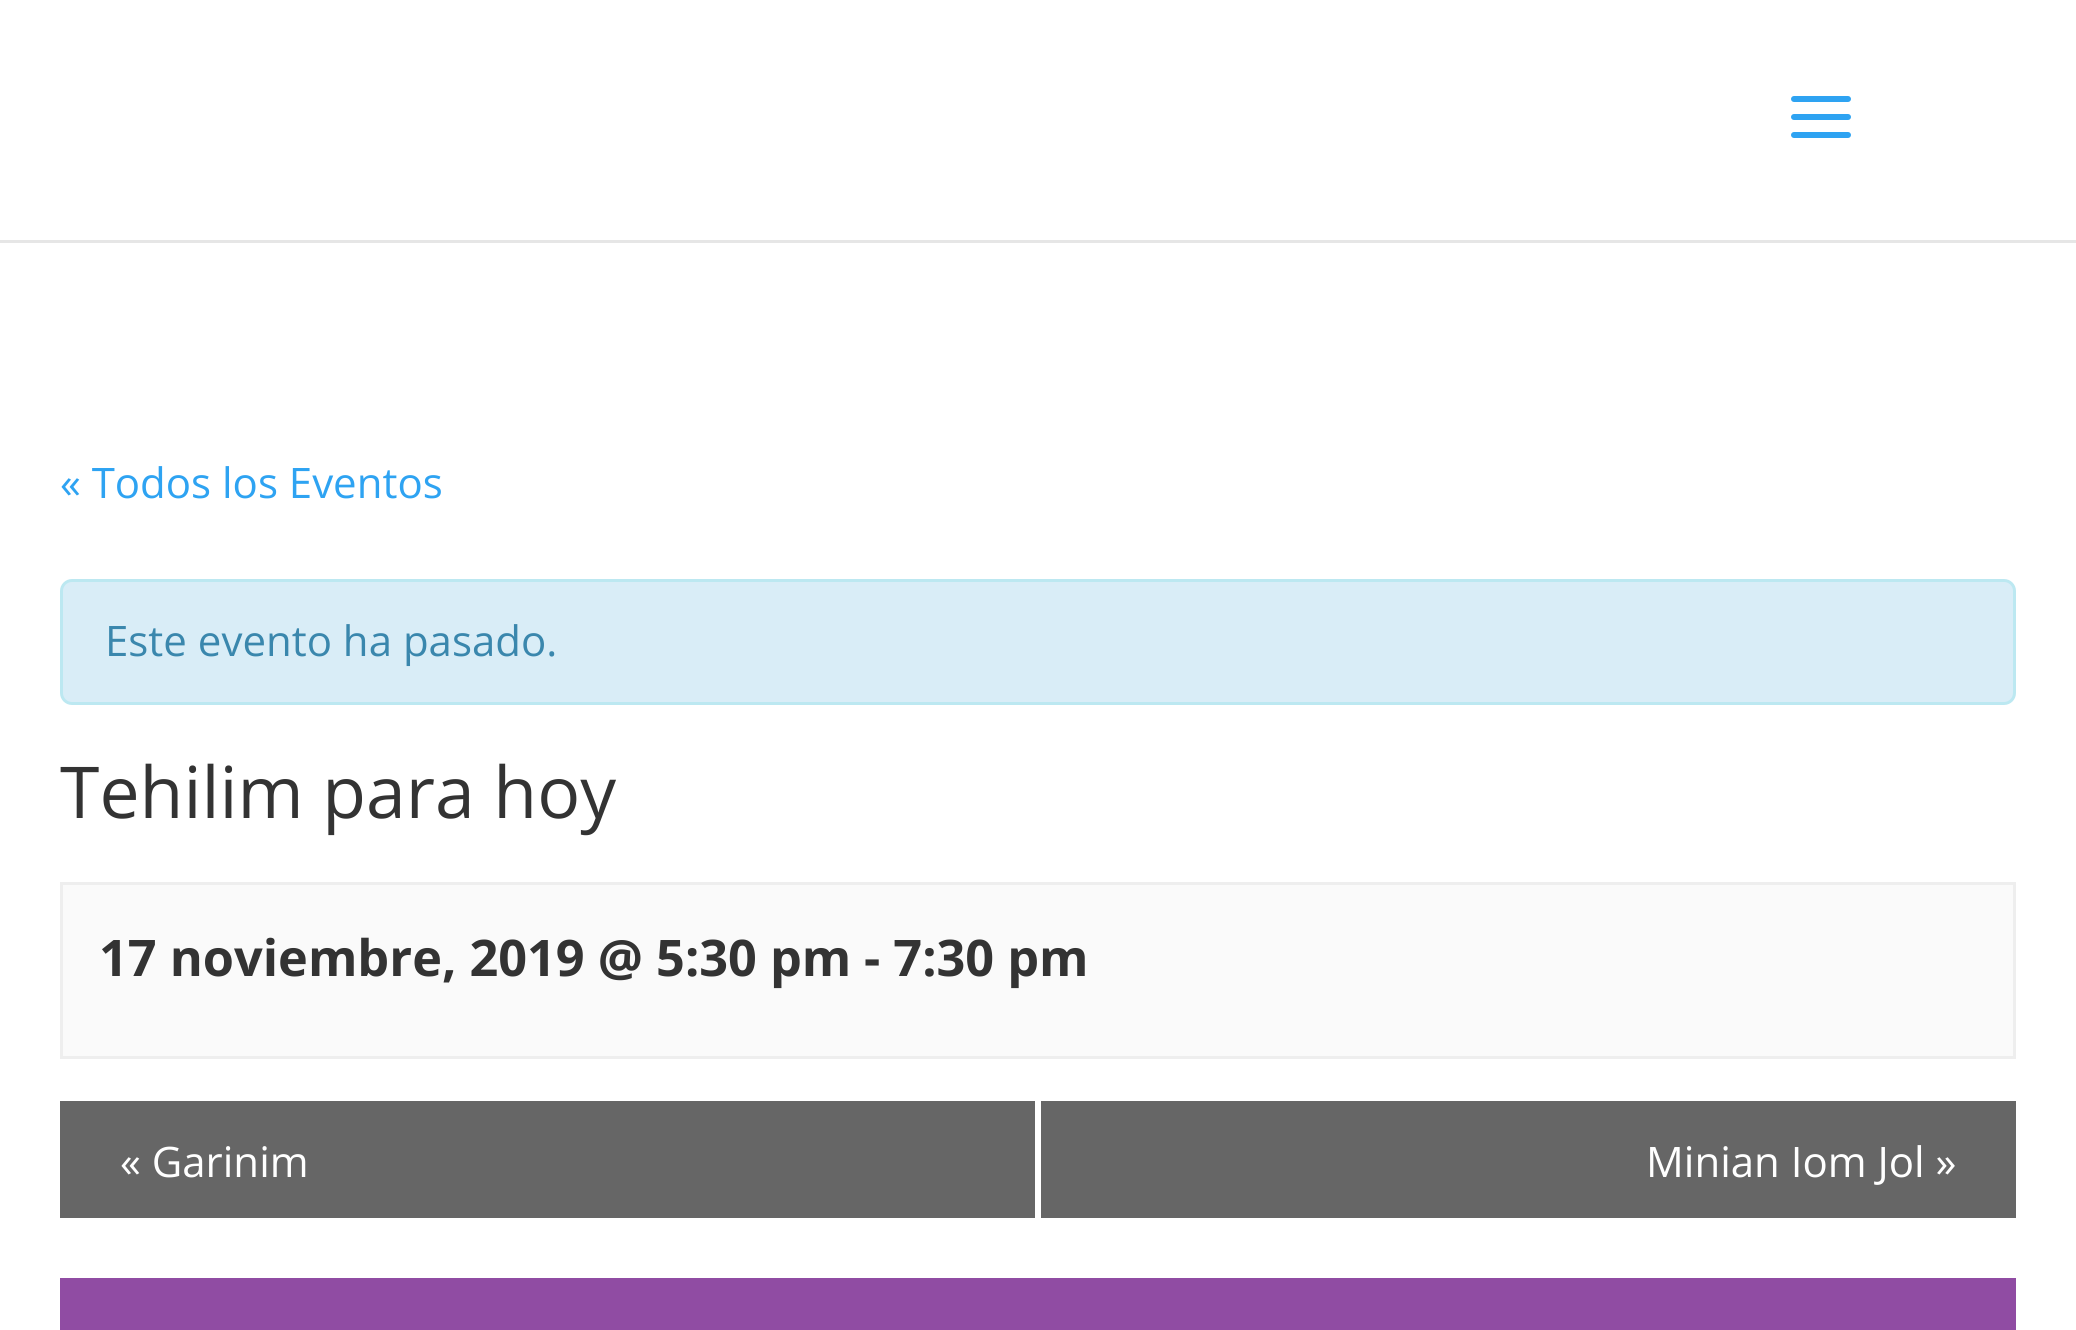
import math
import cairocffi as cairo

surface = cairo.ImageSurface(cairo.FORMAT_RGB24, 2076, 1330)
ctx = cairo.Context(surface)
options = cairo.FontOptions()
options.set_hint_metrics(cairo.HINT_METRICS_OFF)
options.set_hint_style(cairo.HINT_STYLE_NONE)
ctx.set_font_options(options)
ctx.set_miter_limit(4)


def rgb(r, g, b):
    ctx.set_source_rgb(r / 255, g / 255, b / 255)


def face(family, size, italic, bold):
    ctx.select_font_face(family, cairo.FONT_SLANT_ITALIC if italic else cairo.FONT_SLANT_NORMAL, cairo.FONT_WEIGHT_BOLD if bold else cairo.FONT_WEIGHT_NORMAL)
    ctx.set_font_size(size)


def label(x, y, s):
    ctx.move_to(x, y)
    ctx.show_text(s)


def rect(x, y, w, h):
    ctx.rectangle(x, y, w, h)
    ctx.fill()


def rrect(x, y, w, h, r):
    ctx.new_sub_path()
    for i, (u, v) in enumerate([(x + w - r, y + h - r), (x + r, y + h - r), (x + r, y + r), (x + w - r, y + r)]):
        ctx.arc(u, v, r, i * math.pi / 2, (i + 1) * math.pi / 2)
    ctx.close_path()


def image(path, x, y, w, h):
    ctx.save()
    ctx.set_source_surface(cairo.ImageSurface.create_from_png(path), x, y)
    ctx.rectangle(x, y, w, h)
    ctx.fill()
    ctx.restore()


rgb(255, 255, 255)
ctx.paint()
rgb(230, 230, 230)
rect(0, 240, 2076, 3)
image('image0.png', 1791, 96, 60, 42)
face('Open Sans', 42, 0, 0)
rgb(46, 163, 242)
label(60, 498, '« Todos los Eventos')
rgb(217, 237, 247)
rrect(61.5, 580.5, 1953, 123, 10.5)
ctx.fill_preserve()
rgb(188, 232, 241)
ctx.set_line_width(3)
ctx.stroke()
rgb(58, 135, 173)
label(105, 656, 'Este evento ha pasado.')
face('Open Sans', 71.5, 0, 0)
rgb(51, 51, 51)
label(60, 818, 'Tehilim para hoy')
rgb(250, 250, 250)
ctx.rectangle(61.5, 883.5, 1953, 174)
ctx.fill_preserve()
rgb(238, 238, 238)
ctx.stroke()
face('Open Sans', 50.4, 0, 1)
rgb(51, 51, 51)
label(99, 976, '17 noviembre, 2019 @ 5:30 pm')
label(864, 976, '- 7:30 pm')
rgb(102, 102, 102)
rect(60, 1101, 975, 117)
face('Open Sans', 42, 0, 0)
rgb(255, 255, 255)
label(120, 1177, '« Garinim')
rgb(102, 102, 102)
rect(1041, 1101, 975, 117)
rgb(255, 255, 255)
label(1646, 1177, 'Minian Iom Jol »')
rgb(144, 76, 163)
rect(60, 1278, 1956, 52)
surface.write_to_png('render.png')
